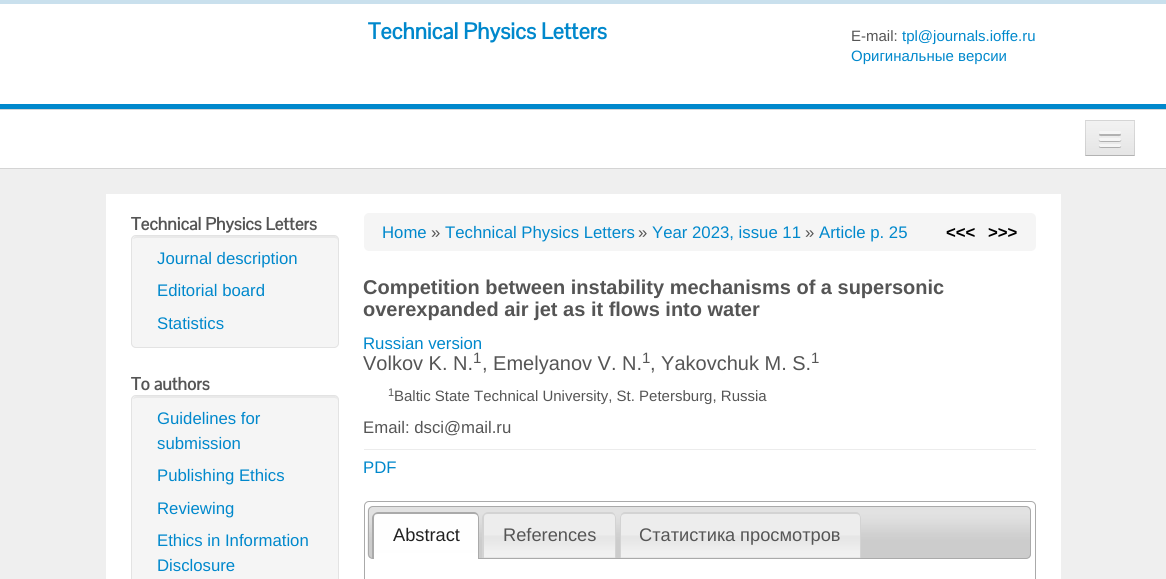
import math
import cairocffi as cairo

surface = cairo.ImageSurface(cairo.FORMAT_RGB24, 1166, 579)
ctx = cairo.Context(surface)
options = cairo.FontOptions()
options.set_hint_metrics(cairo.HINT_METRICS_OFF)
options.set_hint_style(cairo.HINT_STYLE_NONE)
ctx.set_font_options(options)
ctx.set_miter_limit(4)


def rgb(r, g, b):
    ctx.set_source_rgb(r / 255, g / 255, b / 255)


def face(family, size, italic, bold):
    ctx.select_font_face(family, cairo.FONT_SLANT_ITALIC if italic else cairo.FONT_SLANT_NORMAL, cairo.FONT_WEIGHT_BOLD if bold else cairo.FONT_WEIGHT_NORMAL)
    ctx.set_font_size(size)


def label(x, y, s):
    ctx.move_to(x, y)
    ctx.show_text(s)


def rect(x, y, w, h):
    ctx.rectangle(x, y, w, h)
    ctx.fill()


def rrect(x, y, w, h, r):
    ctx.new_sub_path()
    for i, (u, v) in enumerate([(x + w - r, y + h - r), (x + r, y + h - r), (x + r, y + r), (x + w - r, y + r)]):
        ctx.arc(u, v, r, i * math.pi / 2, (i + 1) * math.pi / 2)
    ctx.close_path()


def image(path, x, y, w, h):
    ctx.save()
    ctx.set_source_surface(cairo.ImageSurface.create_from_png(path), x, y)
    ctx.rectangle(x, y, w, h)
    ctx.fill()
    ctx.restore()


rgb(239, 239, 239)
ctx.paint()
rgb(255, 255, 255)
rect(0, 4, 1166, 100)
rgb(201, 224, 237)
rect(0, 0, 1166, 4)
rgb(0, 136, 204)
rect(0, 104, 1166, 5)
face('Pontano Sans', 22.5, 0, 1)
label(368, 39, 'Technical Physics Letters')
face('Liberation Sans', 15, 0, 0)
rgb(85, 85, 85)
label(851, 41, 'E-mail:')
rgb(0, 136, 204)
label(902, 41, 'tpl@journals.ioffe.ru')
label(851, 61, 'Оригинальные версии')
rgb(255, 255, 255)
rect(0, 110, 1166, 58)
rgb(212, 212, 212)
rect(0, 109, 1166, 1)
rect(0, 168, 1166, 1)
rgb(237, 237, 237)
rect(1085, 120, 50, 36)
gradient = cairo.LinearGradient(1110, 121, 1110, 155)
gradient.add_color_stop_rgba(0, 0.949, 0.949, 0.949, 1)
gradient.add_color_stop_rgba(1, 0.898, 0.898, 0.898, 1)
ctx.set_source(gradient)
rect(1085, 121, 50, 34)
rgb(213, 213, 213)
ctx.new_path()
ctx.move_to(1085, 120)
ctx.line_to(1135, 120)
ctx.line_to(1134, 121)
ctx.line_to(1086, 121)
ctx.close_path()
ctx.fill()
ctx.set_source_rgba(0, 0, 0, 0.1)
ctx.new_path()
ctx.move_to(1135, 120)
ctx.line_to(1135, 156)
ctx.line_to(1134, 155)
ctx.line_to(1134, 121)
ctx.close_path()
ctx.fill()
ctx.set_source_rgba(0, 0, 0, 0.25)
ctx.new_path()
ctx.move_to(1135, 156)
ctx.line_to(1085, 156)
ctx.line_to(1086, 155)
ctx.line_to(1134, 155)
ctx.close_path()
ctx.fill()
ctx.set_source_rgba(0, 0, 0, 0.1)
ctx.new_path()
ctx.move_to(1085, 156)
ctx.line_to(1085, 120)
ctx.line_to(1086, 121)
ctx.line_to(1086, 155)
ctx.close_path()
ctx.fill()
rgb(177, 177, 177)
ctx.new_path()
ctx.move_to(1099.5, 133.5)
ctx.line_to(1099, 135)
ctx.curve_to(1099.5, 136.5, 1102.5, 136, 1103.5, 136)
ctx.line_to(1116.5, 136)
ctx.curve_to(1117.5, 136, 1120.5, 136.5, 1121, 135)
ctx.line_to(1120.5, 133.5)
ctx.close_path()
ctx.fill()
rgb(245, 245, 245)
rrect(1099, 131, 22, 3, 1.5)
ctx.fill()
rgb(176, 176, 176)
ctx.new_path()
ctx.move_to(1099, 139.5)
ctx.curve_to(1097.5, 142.5, 1103, 142, 1103.5, 142)
ctx.line_to(1116.5, 142)
ctx.curve_to(1117, 142, 1122.5, 142.5, 1121, 139.5)
ctx.curve_to(1120, 140, 1100, 140, 1099, 139.5)
ctx.close_path()
ctx.fill()
rgb(245, 245, 245)
rrect(1099, 138, 22, 3, 1.5)
ctx.fill()
rgb(174, 174, 174)
ctx.new_path()
ctx.move_to(1099, 146)
ctx.curve_to(1098, 148.5, 1103, 148, 1103.5, 148)
ctx.line_to(1116.5, 148)
ctx.curve_to(1117, 148, 1122, 148.5, 1121, 146)
ctx.curve_to(1120, 146.5, 1100, 146.5, 1099, 146)
ctx.close_path()
ctx.fill()
rgb(245, 245, 245)
rrect(1099, 144, 22, 3, 1.5)
ctx.fill()
rgb(255, 255, 255)
rect(106, 194, 955, 385)
face('Pontano Sans', 17.5, 0, 1)
rgb(85, 85, 85)
label(131, 230, 'Technical Physics Letters')
rgb(245, 245, 245)
rrect(131, 235, 208, 113, 5)
ctx.fill()
rgb(233, 233, 233)
ctx.new_path()
ctx.move_to(136, 238)
ctx.line_to(334, 238)
ctx.curve_to(336, 238, 338, 239, 338, 241)
ctx.line_to(338, 240)
ctx.curve_to(338, 238, 336, 236, 334, 236)
ctx.line_to(137, 236)
ctx.curve_to(135, 236, 134, 237, 133, 239)
ctx.close_path()
ctx.fill()
rrect(131.5, 235.5, 207, 112, 4.5)
rgb(227, 227, 227)
ctx.set_line_width(1)
ctx.stroke()
face('Liberation Sans', 16.75, 0, 0)
rgb(0, 136, 204)
label(157, 264, 'Journal description')
label(157, 296, 'Editorial board')
label(157, 329, 'Statistics')
face('Pontano Sans', 17.5, 0, 1)
rgb(85, 85, 85)
label(131, 390, 'To authors')
rgb(245, 245, 245)
rrect(131, 395, 208, 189, 5)
ctx.fill()
rgb(233, 233, 233)
ctx.new_path()
ctx.move_to(136, 398)
ctx.line_to(334, 398)
ctx.curve_to(336, 398, 338, 399, 338, 401)
ctx.line_to(338, 400)
ctx.curve_to(338, 398, 336, 396, 334, 396)
ctx.line_to(137, 396)
ctx.curve_to(135, 396, 134, 397, 133, 399)
ctx.close_path()
ctx.fill()
rrect(131.5, 395.5, 207, 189, 4.5)
rgb(227, 227, 227)
ctx.stroke()
face('Liberation Sans', 16.75, 0, 0)
rgb(0, 136, 204)
label(157, 424, 'Guidelines for')
label(157, 449, 'submission')
label(157, 481, 'Publishing Ethics')
label(157, 514, 'Reviewing')
label(157, 546, 'Ethics in Information')
label(157, 571, 'Disclosure')
rgb(245, 245, 245)
rrect(364, 213, 672, 38, 5)
ctx.fill()
rgb(0, 136, 204)
label(382, 238, 'Home')
rgb(85, 85, 85)
label(431, 238, '»')
rgb(0, 136, 204)
label(445, 238, 'Technical Physics Letters')
rgb(85, 85, 85)
label(638, 238, '»')
rgb(0, 136, 204)
label(652, 238, 'Year 2023, issue 11')
rgb(85, 85, 85)
label(805, 238, '»')
rgb(0, 136, 204)
label(819, 238, 'Article p. 25')
face('Liberation Sans', 16.75, 0, 1)
rgb(0, 0, 0)
label(946, 238, '<<<')
label(988, 238, '>>>')
face('Liberation Sans', 20, 0, 1)
rgb(85, 85, 85)
label(363, 294, 'Competition between instability mechanisms of a supersonic')
label(363, 316, 'overexpanded air jet as it flows into water')
face('Liberation Sans', 16.75, 0, 0)
rgb(0, 136, 204)
label(363, 349, 'Russian version')
face('Liberation Sans', 20, 0, 0)
rgb(85, 85, 85)
label(363, 370, 'Volkov K. N.')
face('Liberation Sans', 15, 0, 0)
label(473, 363, '1')
face('Liberation Sans', 20, 0, 0)
label(482, 370, ', Emelyanov V. N.')
face('Liberation Sans', 15, 0, 0)
label(642, 363, '1')
face('Liberation Sans', 20, 0, 0)
label(650, 370, ', Yakovchuk M. S.')
face('Liberation Sans', 15, 0, 0)
label(811, 363, '1')
face('Liberation Sans', 11, 0, 0)
label(388, 396, '1')
face('Liberation Sans', 15, 0, 0)
label(394, 401, 'Baltic State Technical University, St. Petersburg, Russia')
face('Liberation Sans', 16.75, 0, 0)
label(363, 433, 'Email: dsci@mail.ru')
rgb(236, 236, 236)
rect(364, 449, 672, 1)
rgb(0, 136, 204)
label(363, 473, 'PDF')
rrect(364.5, 501.5, 671, 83, 4.5)
rgb(170, 170, 170)
ctx.stroke()
image('image0.png', 367, 506, 664, 53)
rrect(368.5, 506.5, 662, 52, 4.5)
ctx.stroke()
rgb(255, 255, 255)
ctx.new_path()
ctx.move_to(378, 513)
ctx.line_to(474, 513)
ctx.curve_to(477, 513, 479, 515, 479, 518)
ctx.line_to(479, 559)
ctx.line_to(373, 559)
ctx.line_to(373, 518)
ctx.curve_to(373, 515, 375, 513, 378, 513)
ctx.close_path()
ctx.fill()
image('image1.png', 372, 512, 107, 47)
rgb(170, 170, 170)
ctx.set_fill_rule(cairo.FILL_RULE_EVEN_ODD)
ctx.new_path()
ctx.move_to(378, 512)
ctx.line_to(474, 512)
ctx.curve_to(477, 512, 479, 515, 479, 518)
ctx.line_to(479, 559)
ctx.line_to(372, 559)
ctx.line_to(372, 518)
ctx.curve_to(372, 515, 375, 512, 378, 512)
ctx.close_path()
ctx.move_to(378, 514)
ctx.line_to(474, 514)
ctx.curve_to(476, 514, 478, 515, 478, 518)
ctx.line_to(478, 559)
ctx.line_to(374, 559)
ctx.line_to(374, 518)
ctx.curve_to(374, 515, 375, 514, 378, 514)
ctx.close_path()
ctx.fill()
face('Liberation Sans', 18.25, 0, 0)
rgb(33, 33, 33)
label(393, 541, 'Abstract')
rgb(230, 230, 230)
ctx.new_path()
ctx.move_to(488, 513)
ctx.line_to(611, 513)
ctx.curve_to(614, 513, 616, 515, 616, 518)
ctx.line_to(616, 558)
ctx.line_to(483, 558)
ctx.line_to(483, 518)
ctx.curve_to(483, 515, 485, 513, 488, 513)
ctx.close_path()
ctx.fill()
image('image2.png', 482, 513, 134, 44)
rgb(211, 211, 211)
ctx.new_path()
ctx.move_to(488, 512)
ctx.line_to(611, 512)
ctx.curve_to(614, 512, 616, 515, 616, 518)
ctx.line_to(616, 558)
ctx.line_to(482, 558)
ctx.line_to(482, 518)
ctx.curve_to(482, 515, 485, 512, 488, 512)
ctx.close_path()
ctx.move_to(488, 514)
ctx.line_to(611, 514)
ctx.curve_to(613, 514, 615, 515, 615, 518)
ctx.line_to(615, 558)
ctx.line_to(484, 558)
ctx.line_to(484, 518)
ctx.curve_to(484, 515, 485, 514, 488, 514)
ctx.close_path()
ctx.fill()
rgb(85, 85, 85)
label(503, 541, 'References')
rgb(230, 230, 230)
ctx.new_path()
ctx.move_to(625, 513)
ctx.line_to(856, 513)
ctx.curve_to(859, 513, 861, 515, 861, 518)
ctx.line_to(861, 558)
ctx.line_to(620, 558)
ctx.line_to(620, 518)
ctx.curve_to(620, 515, 622, 513, 625, 513)
ctx.close_path()
ctx.fill()
image('image3.png', 620, 513, 241, 44)
rgb(211, 211, 211)
ctx.new_path()
ctx.move_to(625, 512)
ctx.line_to(856, 512)
ctx.curve_to(859, 512, 861, 515, 861, 518)
ctx.line_to(861, 558)
ctx.line_to(620, 558)
ctx.line_to(620, 518)
ctx.curve_to(620, 515, 622, 512, 625, 512)
ctx.close_path()
ctx.move_to(625, 514)
ctx.line_to(856, 514)
ctx.curve_to(858, 514, 860, 515, 860, 518)
ctx.line_to(860, 558)
ctx.line_to(621, 558)
ctx.line_to(621, 518)
ctx.curve_to(621, 515, 623, 514, 625, 514)
ctx.close_path()
ctx.fill()
rgb(85, 85, 85)
label(639, 541, 'Статистика просмотров')
surface.write_to_png('render.png')
